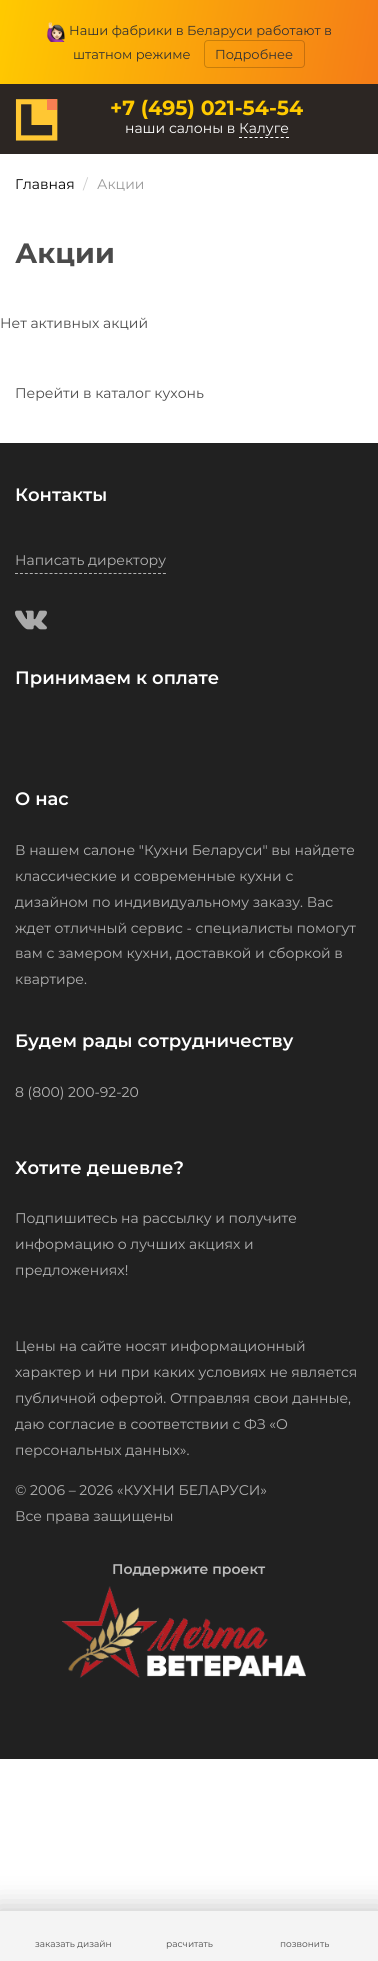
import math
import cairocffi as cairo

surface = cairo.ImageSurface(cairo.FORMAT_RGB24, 378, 1961)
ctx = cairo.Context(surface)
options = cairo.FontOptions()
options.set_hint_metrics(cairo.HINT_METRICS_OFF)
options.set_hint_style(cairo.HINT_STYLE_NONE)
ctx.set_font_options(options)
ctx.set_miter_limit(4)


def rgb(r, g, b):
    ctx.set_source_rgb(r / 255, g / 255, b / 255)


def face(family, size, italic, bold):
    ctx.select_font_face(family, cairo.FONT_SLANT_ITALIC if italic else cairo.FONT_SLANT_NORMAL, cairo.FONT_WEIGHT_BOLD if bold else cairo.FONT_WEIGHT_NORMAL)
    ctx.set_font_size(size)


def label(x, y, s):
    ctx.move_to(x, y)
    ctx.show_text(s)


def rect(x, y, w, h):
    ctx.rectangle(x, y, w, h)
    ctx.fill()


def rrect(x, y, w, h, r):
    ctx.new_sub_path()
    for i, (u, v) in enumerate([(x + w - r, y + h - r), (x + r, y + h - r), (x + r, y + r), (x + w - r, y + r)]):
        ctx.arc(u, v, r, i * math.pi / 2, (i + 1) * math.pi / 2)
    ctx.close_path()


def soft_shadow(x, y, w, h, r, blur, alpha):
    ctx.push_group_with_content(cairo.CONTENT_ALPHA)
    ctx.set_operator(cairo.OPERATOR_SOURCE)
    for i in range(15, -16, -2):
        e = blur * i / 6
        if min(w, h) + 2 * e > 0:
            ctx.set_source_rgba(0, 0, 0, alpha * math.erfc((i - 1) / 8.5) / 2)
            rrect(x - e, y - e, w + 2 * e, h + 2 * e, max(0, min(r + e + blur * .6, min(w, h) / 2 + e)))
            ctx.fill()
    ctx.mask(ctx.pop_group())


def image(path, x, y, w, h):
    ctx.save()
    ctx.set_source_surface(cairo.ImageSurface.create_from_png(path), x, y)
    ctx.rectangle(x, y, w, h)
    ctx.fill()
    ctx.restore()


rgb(255, 255, 255)
ctx.paint()
gradient = cairo.LinearGradient(-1, 5.1, 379, 79)
gradient.add_color_stop_rgba(0, 1, 0.792, 0, 1)
gradient.add_color_stop_rgba(1, 0.961, 0.486, 0.09, 1)
ctx.set_source(gradient)
rect(0, 0, 378, 84)
image('image0.png', 47, 22, 18, 20)
face('Montserrat', 13, 0, 0)
rgb(50, 50, 50)
label(69, 35, 'Наши фабрики в Беларуси работают в')
label(73, 59, 'штатном режиме')
rrect(204.5, 40.5, 100, 27, 3.5)
ctx.set_source_rgba(0, 0, 0, 0.2)
ctx.set_line_width(1)
ctx.stroke()
rgb(50, 50, 50)
label(215, 59, 'Подробнее')
rgb(44, 38, 35)
rect(0, 84, 378, 70)
image('image1.png', 15, 99, 43, 42)
face('Montserrat', 20.5, 0, 1)
rgb(255, 202, 0)
label(110, 115, '+7 (495) 021-54-54')
face('Montserrat', 14, 0, 0)
rgb(255, 255, 255)
label(125, 133, 'наши салоны в Калуге')
ctx.new_path()
ctx.move_to(239, 137.5)
ctx.line_to(289, 137.5)
ctx.set_dash([3, 2.22])
ctx.stroke()
rgb(0, 0, 0)
label(15, 189, 'Главная')
rgb(204, 204, 204)
label(83, 189, '/')
rgb(153, 153, 153)
label(97, 189, 'Акции')
face('Montserrat', 28, 0, 1)
rgb(74, 74, 74)
label(15, 263, 'Акции')
face('Montserrat', 14, 0, 0)
label(0, 328, 'Нет активных акций')
label(15, 398, 'Перейти в каталог кухонь')
rgb(33, 33, 33)
rect(0, 443, 378, 1316)
face('Montserrat SemiBold', 18, 0, 0)
rgb(255, 255, 255)
label(15, 501, 'Контакты')
ctx.new_path()
ctx.move_to(15, 573.5)
ctx.line_to(166, 573.5)
rgb(179, 179, 179)
ctx.set_dash([3, 1.93])
ctx.stroke()
face('Montserrat', 14, 0, 0)
label(15, 565, 'Написать директору')
image('image2.png', 15, 610, 32, 20)
face('Montserrat SemiBold', 18, 0, 0)
rgb(255, 255, 255)
label(15, 684, 'Принимаем к оплате')
label(15, 805, 'О нас')
face('Montserrat', 14, 0, 0)
rgb(179, 179, 179)
label(15, 855, 'В нашем салоне "Кухни Беларуси" вы найдете')
label(15, 881, 'классические и современные кухни с')
label(15, 907, 'дизайном по индивидуальному заказу. Вас')
label(15, 933, 'ждет отличный сервис - специалисты помогут')
label(15, 958, 'вам с замером кухни, доставкой и сборкой в')
label(15, 984, 'квартире.')
face('Montserrat SemiBold', 18, 0, 0)
rgb(255, 255, 255)
label(15, 1047, 'Будем рады сотрудничеству')
face('Montserrat', 14, 0, 0)
rgb(179, 179, 179)
label(15, 1097, '8 (800) 200-92-20')
face('Montserrat SemiBold', 18, 0, 0)
rgb(255, 255, 255)
label(15, 1174, 'Хотите дешевле?')
face('Montserrat', 14, 0, 0)
rgb(179, 179, 179)
label(15, 1223, 'Подпишитесь на рассылку и получите')
label(15, 1249, 'информацию о лучших акциях и')
label(15, 1275, 'предложениях!')
label(15, 1351, 'Цены на сайте носят информационный')
label(15, 1377, 'характер и ни при каких условиях не является')
label(15, 1403, 'публичной офертой. Отправляя свои данные,')
label(15, 1429, 'даю согласие в соответствии с ФЗ «О')
label(15, 1455, 'персональных данных».')
label(15, 1495, '© 2006 – 2026 «КУХНИ БЕЛАРУСИ»')
label(15, 1521, 'Все права защищены')
face('Montserrat SemiBold', 14, 0, 0)
rgb(188, 188, 188)
label(112, 1574, 'Поддержите проект')
image('image3.png', 62, 1586, 244, 92)
rgb(0, 0, 0)
soft_shadow(-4, 1906, 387, 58, 0, 14, 0.2)
rgb(244, 244, 244)
rect(0, 1911, 378, 50)
face('Montserrat', 9, 0, 0)
rgb(74, 74, 74)
label(35, 1947, 'заказать дизайн')
label(166, 1947, 'расчитать')
label(280, 1947, 'позвонить')
surface.write_to_png('render.png')
